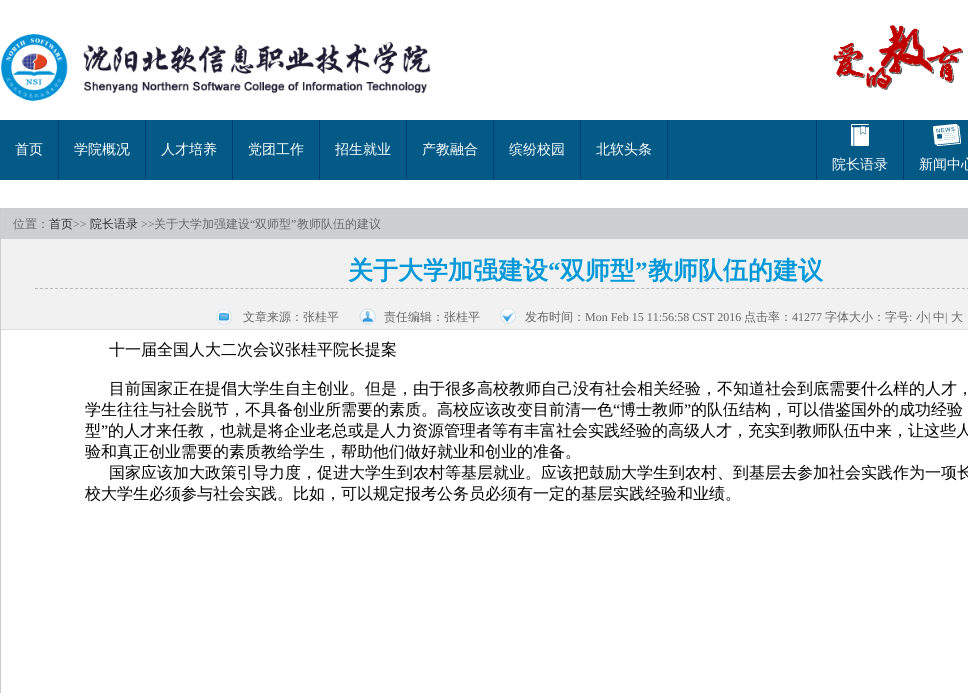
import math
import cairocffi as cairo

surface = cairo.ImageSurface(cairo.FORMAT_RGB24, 968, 693)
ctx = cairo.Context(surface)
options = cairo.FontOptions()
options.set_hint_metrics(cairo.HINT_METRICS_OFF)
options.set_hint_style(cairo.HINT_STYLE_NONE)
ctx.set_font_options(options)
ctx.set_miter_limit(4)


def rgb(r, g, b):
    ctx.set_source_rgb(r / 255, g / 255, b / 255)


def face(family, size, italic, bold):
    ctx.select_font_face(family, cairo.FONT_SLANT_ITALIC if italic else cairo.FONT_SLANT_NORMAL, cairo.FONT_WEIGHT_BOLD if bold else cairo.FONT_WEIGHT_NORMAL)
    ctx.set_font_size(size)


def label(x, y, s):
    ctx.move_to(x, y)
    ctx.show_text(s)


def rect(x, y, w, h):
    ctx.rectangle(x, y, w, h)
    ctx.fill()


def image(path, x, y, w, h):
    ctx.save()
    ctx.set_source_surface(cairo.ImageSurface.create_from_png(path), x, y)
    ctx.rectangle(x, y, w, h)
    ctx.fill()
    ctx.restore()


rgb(255, 255, 255)
ctx.paint()
image('image0.png', 0, 34, 431, 67)
image('image1.png', 833, 25, 130, 65)
rgb(3, 90, 134)
rect(0, 120, 968, 60)
face('WenQuanYi Zen Hei Medium', 14, 0, 0)
rgb(255, 255, 255)
label(15, 154, '首页')
rgb(7, 63, 116)
rect(58, 120, 1, 60)
rgb(255, 255, 255)
label(74, 154, '学院概况')
rgb(7, 63, 116)
rect(145, 120, 1, 60)
rgb(255, 255, 255)
label(161, 154, '人才培养')
rgb(7, 63, 116)
rect(232, 120, 1, 60)
rgb(255, 255, 255)
label(248, 154, '党团工作')
rgb(7, 63, 116)
rect(319, 120, 1, 60)
rgb(255, 255, 255)
label(335, 154, '招生就业')
rgb(7, 63, 116)
rect(406, 120, 1, 60)
rgb(255, 255, 255)
label(422, 154, '产教融合')
rgb(7, 63, 116)
rect(493, 120, 1, 60)
rgb(255, 255, 255)
label(509, 154, '缤纷校园')
rgb(7, 63, 116)
rect(580, 120, 1, 60)
rgb(255, 255, 255)
label(596, 154, '北软头条')
rgb(7, 63, 116)
rect(667, 120, 1, 60)
rect(816, 120, 1, 60)
image('image2.png', 851, 124, 18, 22)
rgb(255, 255, 255)
label(832, 169, '院长语录')
rgb(7, 63, 116)
rect(903, 120, 1, 60)
image('image3.png', 933, 124, 28, 22)
rgb(255, 255, 255)
label(919, 169, '新闻中心')
ctx.rectangle(0.5, 208.5, 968, 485)
rgb(204, 204, 204)
ctx.set_line_width(1)
ctx.stroke()
rgb(205, 208, 209)
rect(1, 209, 967, 30)
face('WenQuanYi Zen Hei Medium', 12, 0, 0)
rgb(102, 102, 102)
label(13, 228, '位置：')
rgb(51, 51, 51)
label(49, 228, '首页')
face('Liberation Serif', 12, 0, 0)
rgb(102, 102, 102)
label(73, 228, '>>')
face('WenQuanYi Zen Hei Medium', 12, 0, 0)
rgb(51, 51, 51)
label(90, 228, '院长语录')
face('Liberation Serif', 12, 0, 0)
rgb(102, 102, 102)
label(141, 228, '>>')
face('WenQuanYi Zen Hei Medium', 12, 0, 0)
label(154, 228, '关于大学加强建设')
face('Liberation Serif', 12, 0, 0)
label(250, 228, '“')
face('WenQuanYi Zen Hei Medium', 12, 0, 0)
label(255, 228, '双师型')
face('Liberation Serif', 12, 0, 0)
label(291, 228, '”')
face('WenQuanYi Zen Hei Medium', 12, 0, 0)
label(297, 228, '教师队伍的建议')
rgb(241, 241, 241)
rect(1, 239, 967, 90)
rgb(221, 221, 221)
rect(1, 329, 967, 1)
face('WenQuanYi Zen Hei', 25, 0, 1)
rgb(0, 152, 216)
label(348, 279, '关于大学加强建设')
face('Liberation Serif', 25, 0, 1)
label(548, 279, '“')
face('WenQuanYi Zen Hei', 25, 0, 1)
label(560, 279, '双师型')
face('Liberation Serif', 25, 0, 1)
label(635, 279, '”')
face('WenQuanYi Zen Hei', 25, 0, 1)
label(648, 279, '教师队伍的建议')
ctx.new_path()
ctx.move_to(35, 288.5)
ctx.line_to(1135, 288.5)
rgb(187, 187, 187)
ctx.set_dash([3, 2.01])
ctx.stroke()
image('image4.png', 216, 309, 16, 16)
face('WenQuanYi Zen Hei Medium', 12, 0, 0)
rgb(102, 102, 102)
label(243, 321, '文章来源：张桂平')
image('image5.png', 359, 308, 17, 17)
label(384, 321, '责任编辑：张桂平')
image('image6.png', 500, 308, 16, 16)
label(525, 321, '发布时间：')
face('Liberation Serif', 12, 0, 0)
label(585, 321, 'Mon Feb 15 11:56:58 CST 2016')
face('WenQuanYi Zen Hei Medium', 12, 0, 0)
label(744, 321, '点击率：')
face('Liberation Serif', 12, 0, 0)
label(792, 321, '41277')
face('WenQuanYi Zen Hei Medium', 12, 0, 0)
label(825, 321, '字体大小：字号')
face('Liberation Serif', 12, 0, 0)
label(909, 321, ':')
face('WenQuanYi Zen Hei Medium', 12, 0, 0)
label(916, 321, '小')
face('Liberation Serif', 12, 0, 0)
label(928, 321, '|')
face('WenQuanYi Zen Hei Medium', 12, 0, 0)
label(933, 321, '中')
face('Liberation Serif', 12, 0, 0)
label(945, 321, '|')
face('WenQuanYi Zen Hei Medium', 12, 0, 0)
label(951, 321, '大')
face('WenQuanYi Zen Hei Medium', 16, 0, 0)
rgb(0, 0, 0)
label(109, 355, '十一届全国人大二次会议张桂平院长提案')
label(109, 394, '目前国家正在提倡大学生自主创业。但是，由于很多高校教师自己没有社会相关经验，不知道社会到底需要什么样的人才，')
label(85, 415, '学生往往与社会脱节，不具备创业所需要的素质。高校应该改变目前清一色')
face('Liberation Serif', 16, 0, 0)
label(613, 415, '“')
face('WenQuanYi Zen Hei Medium', 16, 0, 0)
label(620, 415, '博士教师')
face('Liberation Serif', 16, 0, 0)
label(684, 415, '”')
face('WenQuanYi Zen Hei Medium', 16, 0, 0)
label(691, 415, '的队伍结构，可以借鉴国外的成功经验')
label(85, 436, '型')
face('Liberation Serif', 16, 0, 0)
label(101, 436, '”')
face('WenQuanYi Zen Hei Medium', 16, 0, 0)
label(108, 436, '的人才来任教，也就是将企业老总或是人力资源管理者等有丰富社会实践经验的高级人才，充实到教师队伍中来，让这些人')
label(85, 457, '验和真正创业需要的素质教给学生，帮助他们做好就业和创业的准备。')
label(109, 478, '国家应该加大政策引导力度，促进大学生到农村等基层就业。应该把鼓励大学生到农村、到基层去参加社会实践作为一项长')
label(85, 499, '校大学生必须参与社会实践。比如，可以规定报考公务员必须有一定的基层实践经验和业绩。')
surface.write_to_png('render.png')
